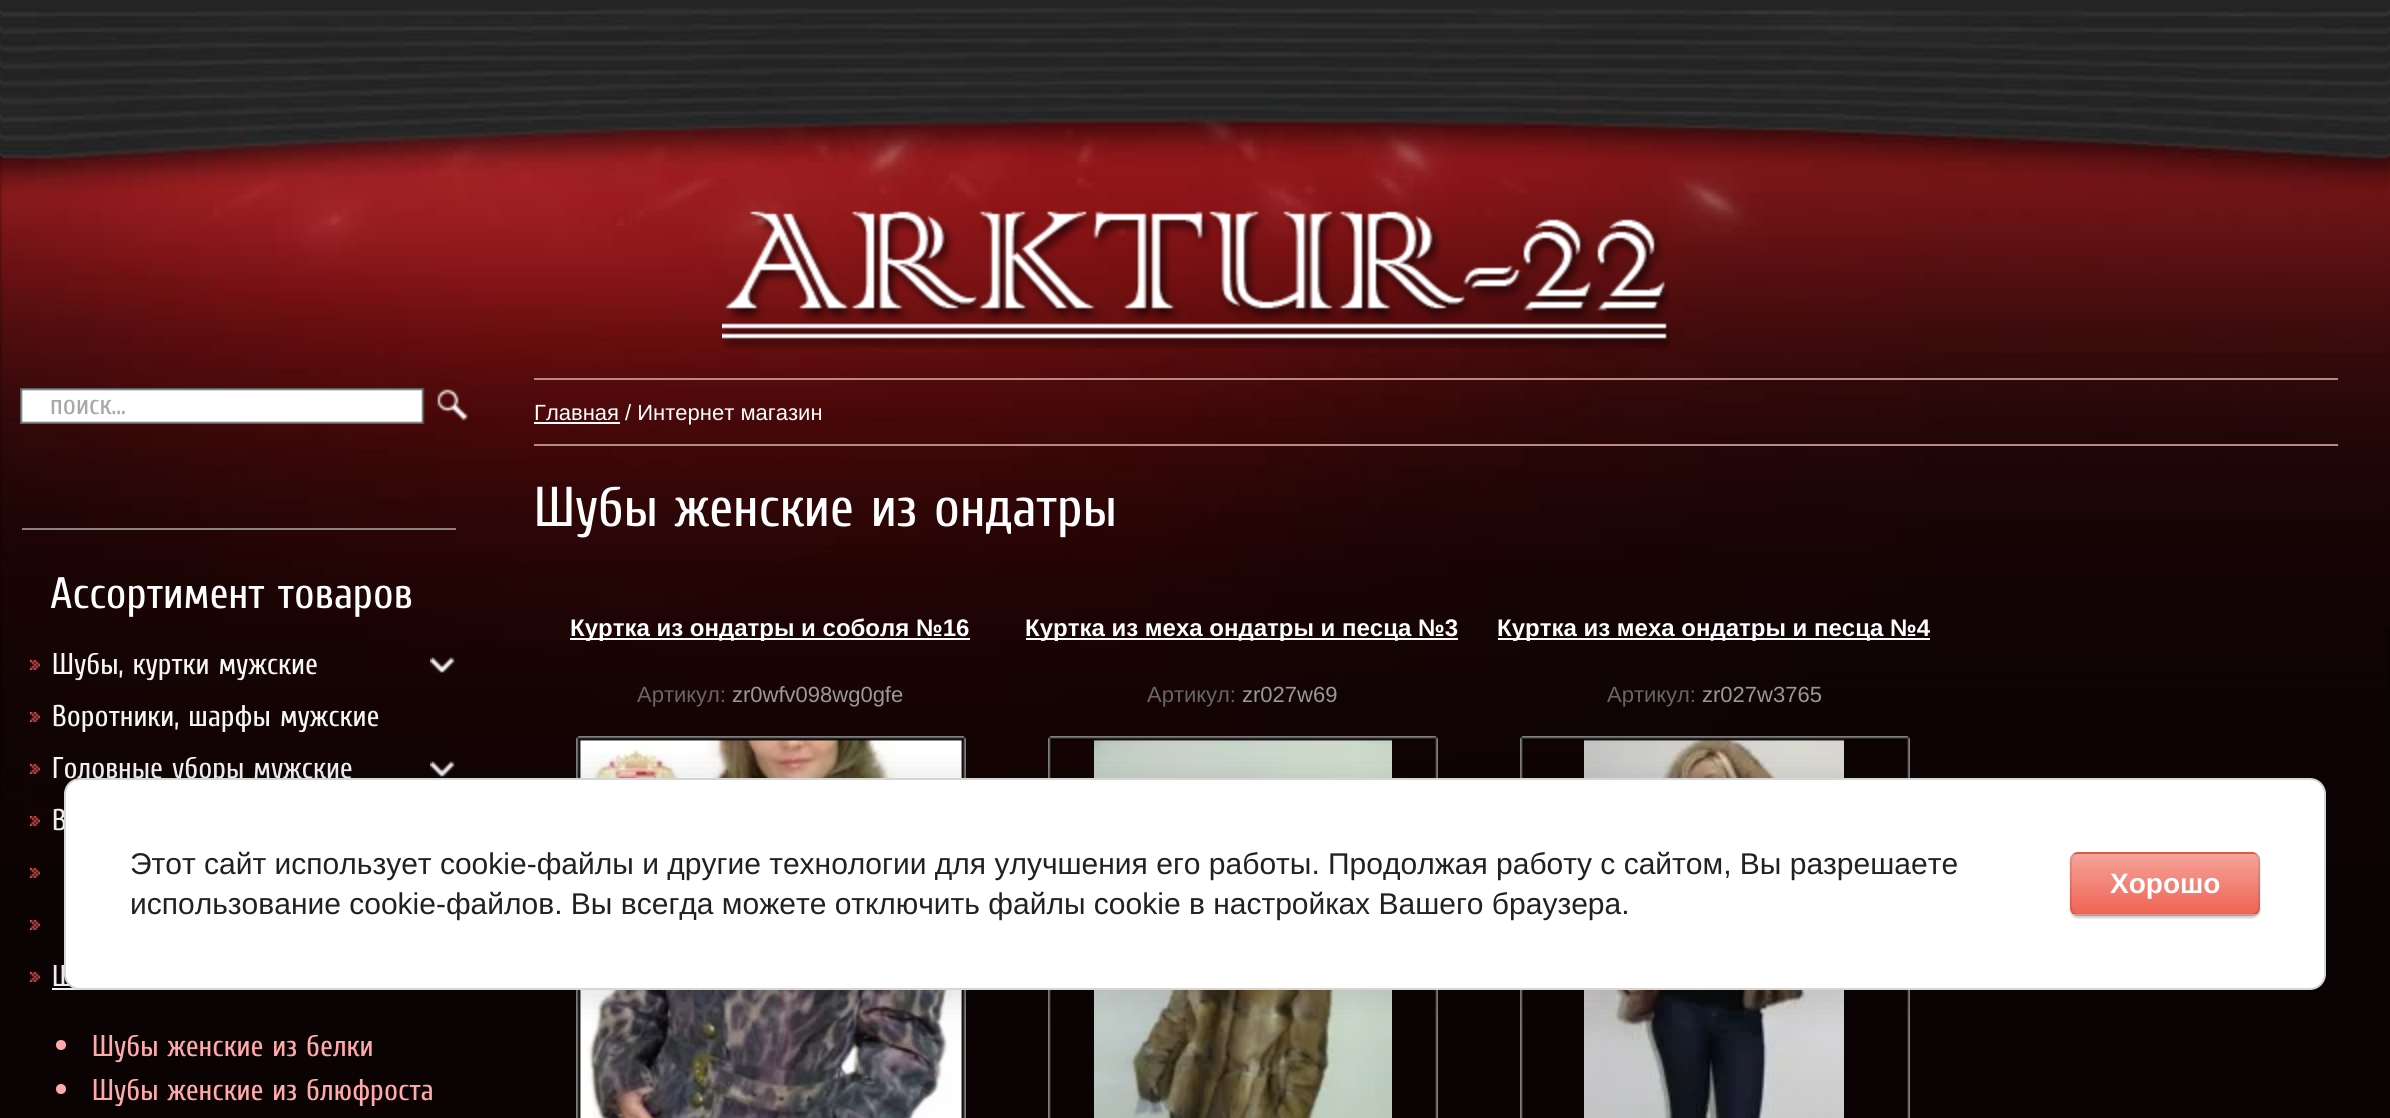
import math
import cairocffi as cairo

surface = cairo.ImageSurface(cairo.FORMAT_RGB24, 2390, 1118)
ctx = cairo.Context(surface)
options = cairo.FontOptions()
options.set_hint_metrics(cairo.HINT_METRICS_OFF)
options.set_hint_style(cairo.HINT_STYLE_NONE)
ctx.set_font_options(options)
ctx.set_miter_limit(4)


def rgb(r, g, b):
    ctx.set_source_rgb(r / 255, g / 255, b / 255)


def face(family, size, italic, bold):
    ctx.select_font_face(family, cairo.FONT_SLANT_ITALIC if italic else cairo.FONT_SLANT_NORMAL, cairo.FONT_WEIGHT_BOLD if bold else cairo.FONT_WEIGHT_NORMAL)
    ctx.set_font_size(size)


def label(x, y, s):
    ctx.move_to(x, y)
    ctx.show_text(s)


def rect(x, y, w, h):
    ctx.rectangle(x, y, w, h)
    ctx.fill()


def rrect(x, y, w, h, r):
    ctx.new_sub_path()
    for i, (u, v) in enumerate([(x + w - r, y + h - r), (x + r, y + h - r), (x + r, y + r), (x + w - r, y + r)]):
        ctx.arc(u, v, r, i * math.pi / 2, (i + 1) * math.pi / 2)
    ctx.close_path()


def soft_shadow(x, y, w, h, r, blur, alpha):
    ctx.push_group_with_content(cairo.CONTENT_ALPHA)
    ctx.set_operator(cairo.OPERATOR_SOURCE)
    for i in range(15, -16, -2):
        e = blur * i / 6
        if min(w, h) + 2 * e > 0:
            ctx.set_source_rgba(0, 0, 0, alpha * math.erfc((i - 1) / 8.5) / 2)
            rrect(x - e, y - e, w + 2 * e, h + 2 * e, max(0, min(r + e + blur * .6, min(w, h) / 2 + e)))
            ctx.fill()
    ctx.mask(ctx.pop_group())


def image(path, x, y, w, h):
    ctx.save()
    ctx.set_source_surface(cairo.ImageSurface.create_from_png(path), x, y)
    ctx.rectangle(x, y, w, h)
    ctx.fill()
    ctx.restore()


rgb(11, 3, 3)
ctx.paint()
image('image0.png', 0, 0, 2390, 628)
image('image1.png', 2, 7, 2386, 858)
image('image2.png', 722, 210, 948, 138)
image('image3.png', 20, 388, 448, 36)
face('Cuprum', 28, 0, 0)
rgb(168, 168, 168)
label(50, 414, 'поиск...')
rgb(140, 130, 131)
rect(22, 528, 434, 2)
face('Cuprum', 44, 0, 0)
rgb(255, 255, 255)
label(50, 608, 'Ассортимент товаров')
image('image4.png', 30, 660, 10, 10)
face('Cuprum', 30, 0, 0)
rgb(246, 246, 246)
label(52, 674, 'Шубы, куртки мужские')
image('image5.png', 430, 657, 25, 16)
image('image6.png', 30, 712, 10, 10)
label(52, 726, 'Воротники, шарфы мужские')
image('image7.png', 30, 764, 10, 10)
label(52, 778, 'Головные уборы мужские')
image('image8.png', 430, 761, 25, 16)
image('image9.png', 30, 816, 10, 10)
label(52, 830, 'В')
image('image10.png', 30, 868, 10, 10)
image('image10.png', 30, 920, 10, 10)
image('image10.png', 30, 972, 10, 10)
label(52, 986, 'Ш')
rect(52, 988, 28, 2)
rgb(255, 169, 171)
ctx.new_path()
ctx.arc(61, 1045, 5, 0, 2 * math.pi)
ctx.fill()
label(92, 1056, 'Шубы женские из белки')
ctx.new_path()
ctx.arc(61, 1089, 5, 0, 2 * math.pi)
ctx.fill()
label(92, 1100, 'Шубы женские из блюфроста')
rgb(185, 137, 138)
rect(534, 378, 1804, 2)
rect(534, 444, 1804, 2)
rgb(255, 255, 255)
rect(534, 422, 86, 2)
face('Liberation Sans', 22, 0, 0)
label(534, 420, 'Главная / Интернет магазин')
face('Cuprum', 56, 0, 0)
label(534, 526, 'Шубы женские из ондатры')
rect(570, 638, 400, 2)
face('Liberation Sans', 24, 0, 1)
label(570, 636, 'Куртка из ондатры и соболя №16')
face('Liberation Sans', 22, 0, 0)
rgb(102, 102, 102)
label(637, 702, 'Артикул:')
rgb(153, 153, 153)
label(732, 702, 'zr0wfv098wg0gfe')
image('image11.png', 576, 736, 390, 382)
image('image12.png', 579, 739, 384, 379)
rgb(255, 255, 255)
rect(1026, 638, 432, 2)
face('Liberation Sans', 24, 0, 1)
label(1025, 636, 'Куртка из меха ондатры и песца №3')
face('Liberation Sans', 22, 0, 0)
rgb(102, 102, 102)
label(1147, 702, 'Артикул:')
rgb(153, 153, 153)
label(1242, 702, 'zr027w69')
image('image13.png', 1048, 736, 390, 382)
image('image14.png', 1094, 739, 298, 2)
rgb(255, 255, 255)
rect(1498, 638, 432, 2)
face('Liberation Sans', 24, 0, 1)
label(1497, 636, 'Куртка из меха ондатры и песца №4')
face('Liberation Sans', 22, 0, 0)
rgb(102, 102, 102)
label(1607, 702, 'Артикул:')
rgb(153, 153, 153)
label(1702, 702, 'zr027w3765')
image('image15.png', 1520, 736, 390, 382)
image('image16.png', 1584, 739, 260, 2)
rgb(0, 0, 0)
soft_shadow(68, 782, 2262, 212, 16, 18, 0.14)
rgb(255, 255, 255)
rrect(65, 779, 2260, 210, 15)
ctx.fill_preserve()
rgb(214, 214, 214)
ctx.stroke()
face('Liberation Sans', 30, 0, 0)
rgb(33, 33, 33)
label(130, 874, 'Этот сайт использует cookie-файлы и другие технологии для улучшения его работы. Продолжая работу с сайтом, Вы разрешаете')
label(130, 914, 'использование cookie-файлов. Вы всегда можете отключить файлы cookie в настройках Вашего браузера.')
rgb(0, 0, 0)
soft_shadow(2070, 854, 190, 64, 8, 1, 0.2)
ctx.save()
rrect(2070, 852, 190, 64, 8)
ctx.clip()
gradient = cairo.LinearGradient(2165, 794, 2165, 854)
gradient.add_color_stop_rgba(0, 0.965, 0.639, 0.604, 1)
gradient.add_color_stop_rgba(1, 0.941, 0.388, 0.329, 1)
ctx.set_source(gradient)
rect(2070, 852, 190, 2)
gradient = cairo.LinearGradient(2165, 854, 2165, 914)
gradient.add_color_stop_rgba(0, 0.965, 0.639, 0.604, 1)
gradient.add_color_stop_rgba(1, 0.941, 0.388, 0.329, 1)
ctx.set_source(gradient)
rect(2070, 854, 190, 60)
gradient = cairo.LinearGradient(2165, 914, 2165, 974)
gradient.add_color_stop_rgba(0, 0.965, 0.639, 0.604, 1)
gradient.add_color_stop_rgba(1, 0.941, 0.388, 0.329, 1)
ctx.set_source(gradient)
rect(2070, 914, 190, 2)
ctx.restore()
rrect(2071, 853, 188, 62, 7)
ctx.set_source_rgba(0, 0, 0, 0.1)
ctx.stroke()
face('Liberation Sans', 28, 0, 1)
rgb(255, 255, 255)
label(2110, 893, 'Хорошо')
surface.write_to_png('render.png')
